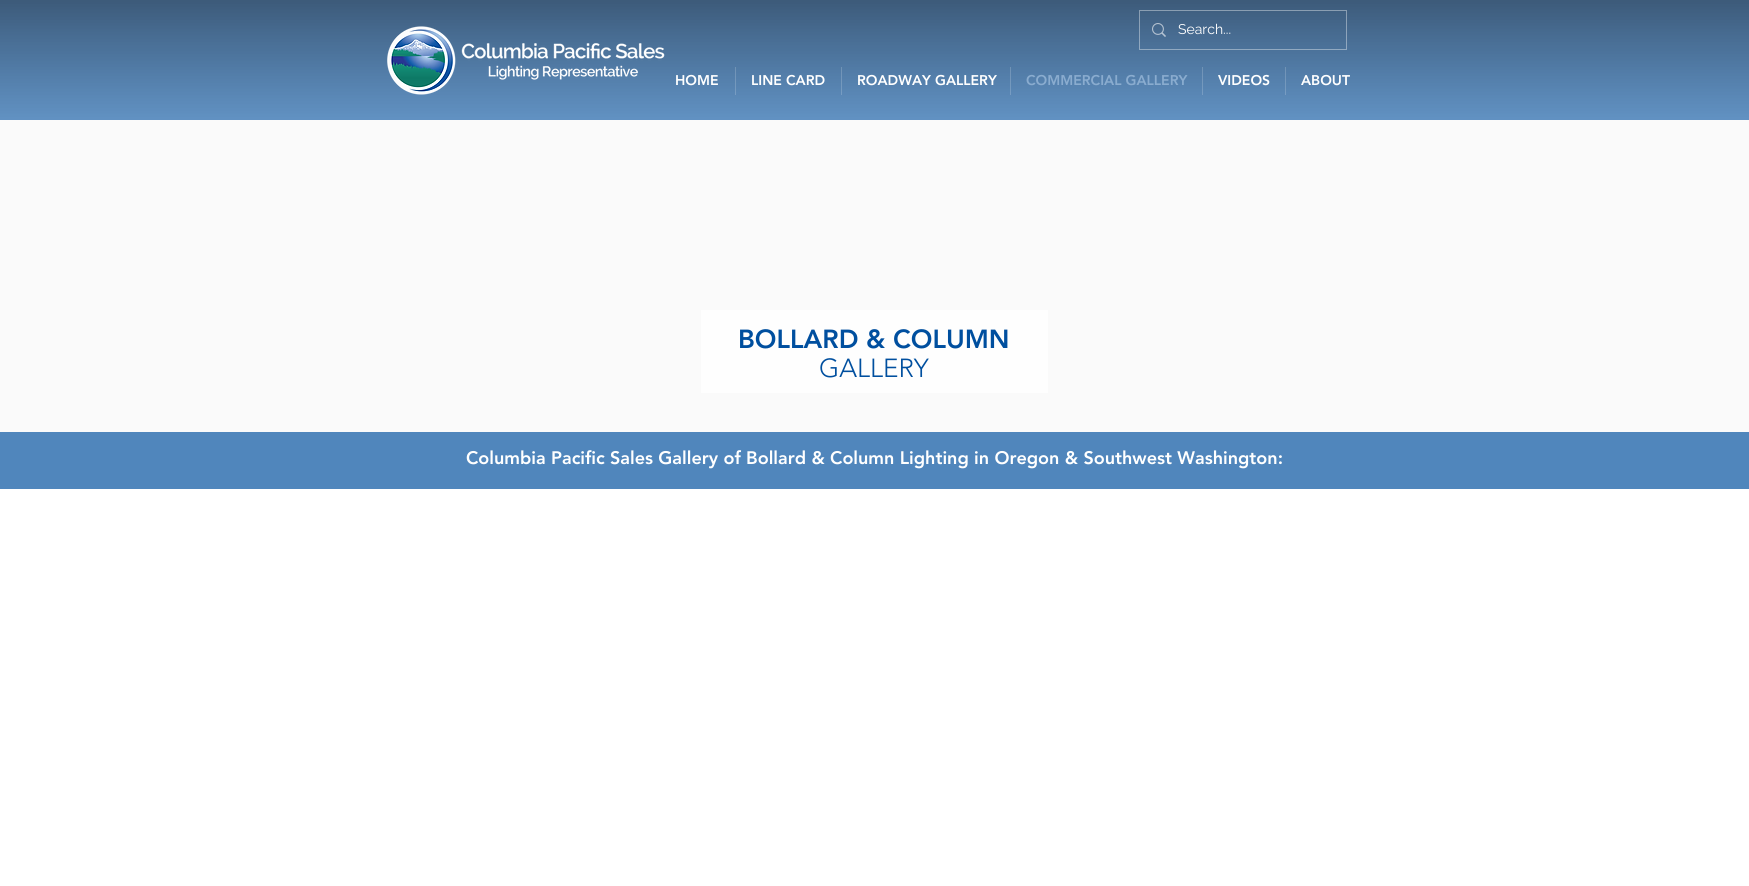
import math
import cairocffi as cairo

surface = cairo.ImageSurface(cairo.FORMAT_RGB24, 1749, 886)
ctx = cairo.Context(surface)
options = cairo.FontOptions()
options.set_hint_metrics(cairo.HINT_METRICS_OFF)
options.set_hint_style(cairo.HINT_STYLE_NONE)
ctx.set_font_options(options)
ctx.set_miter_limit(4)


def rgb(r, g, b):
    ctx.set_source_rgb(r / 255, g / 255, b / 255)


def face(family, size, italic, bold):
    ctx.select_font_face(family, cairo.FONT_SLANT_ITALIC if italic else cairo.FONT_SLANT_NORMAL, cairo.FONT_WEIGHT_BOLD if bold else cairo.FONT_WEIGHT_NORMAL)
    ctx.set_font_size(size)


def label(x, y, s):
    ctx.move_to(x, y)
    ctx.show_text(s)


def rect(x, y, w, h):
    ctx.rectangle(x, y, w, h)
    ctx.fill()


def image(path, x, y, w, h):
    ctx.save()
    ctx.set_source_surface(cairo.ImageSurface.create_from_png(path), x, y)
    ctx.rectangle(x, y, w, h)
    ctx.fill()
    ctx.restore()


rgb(255, 255, 255)
ctx.paint()
rgb(250, 250, 250)
rect(0, 1, 1749, 431)
gradient = cairo.LinearGradient(875, 120, 875, 0)
gradient.add_color_stop_rgba(0, 0, 0.31, 0.624, 0.61)
gradient.add_color_stop_rgba(1, 0, 0.153, 0.314, 0.76)
ctx.set_source(gradient)
rect(0, 0, 1749, 120)
image('image0.png', 387, 26, 69, 69)
image('image1.png', 461, 43, 204, 37)
ctx.rectangle(1139.5, 10.5, 207, 39)
ctx.set_source_rgba(1, 1, 1, 0.39)
ctx.set_line_width(1)
ctx.stroke()
image('image2.png', 1152, 23, 14, 14)
face('Raleway', 14, 0, 0)
rgb(255, 255, 255)
label(1178, 34, 'Search...')
face('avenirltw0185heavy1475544 Black', 14, 0, 0)
label(675, 85, 'HOME')
ctx.set_source_rgba(1, 1, 1, 0.18)
rect(735, 67, 1, 28)
rgb(255, 255, 255)
label(751, 85, 'LINE CARD')
ctx.set_source_rgba(1, 1, 1, 0.18)
rect(841, 67, 1, 28)
rgb(255, 255, 255)
label(857, 85, 'ROADWAY GALLERY')
ctx.set_source_rgba(1, 1, 1, 0.18)
rect(1010, 67, 1, 28)
rgb(138, 172, 207)
label(1026, 85, 'COMMERCIAL GALLERY')
ctx.set_source_rgba(1, 1, 1, 0.18)
rect(1202, 67, 1, 28)
rgb(255, 255, 255)
label(1218, 85, 'VIDEOS')
ctx.set_source_rgba(1, 1, 1, 0.18)
rect(1285, 67, 1, 28)
rgb(255, 255, 255)
label(1301, 85, 'ABOUT')
rgb(254, 254, 254)
rect(701, 310, 347, 83)
face('avenirltw0185heavy1475544 Black', 26, 0, 0)
rgb(0, 79, 159)
label(738, 348, 'BOLLARD & COLUMN')
face('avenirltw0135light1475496 Light', 26, 0, 0)
label(819, 377, 'GALLERY')
rgb(80, 134, 188)
rect(0, 432, 1749, 57)
face('avenirltw0185heavy1475544 Black', 18, 0, 0)
rgb(255, 255, 255)
label(466, 464, 'Columbia Pacific Sales Gallery of Bollard & Column Lighting in Oregon & Southwest Washington:')
surface.write_to_png('render.png')
